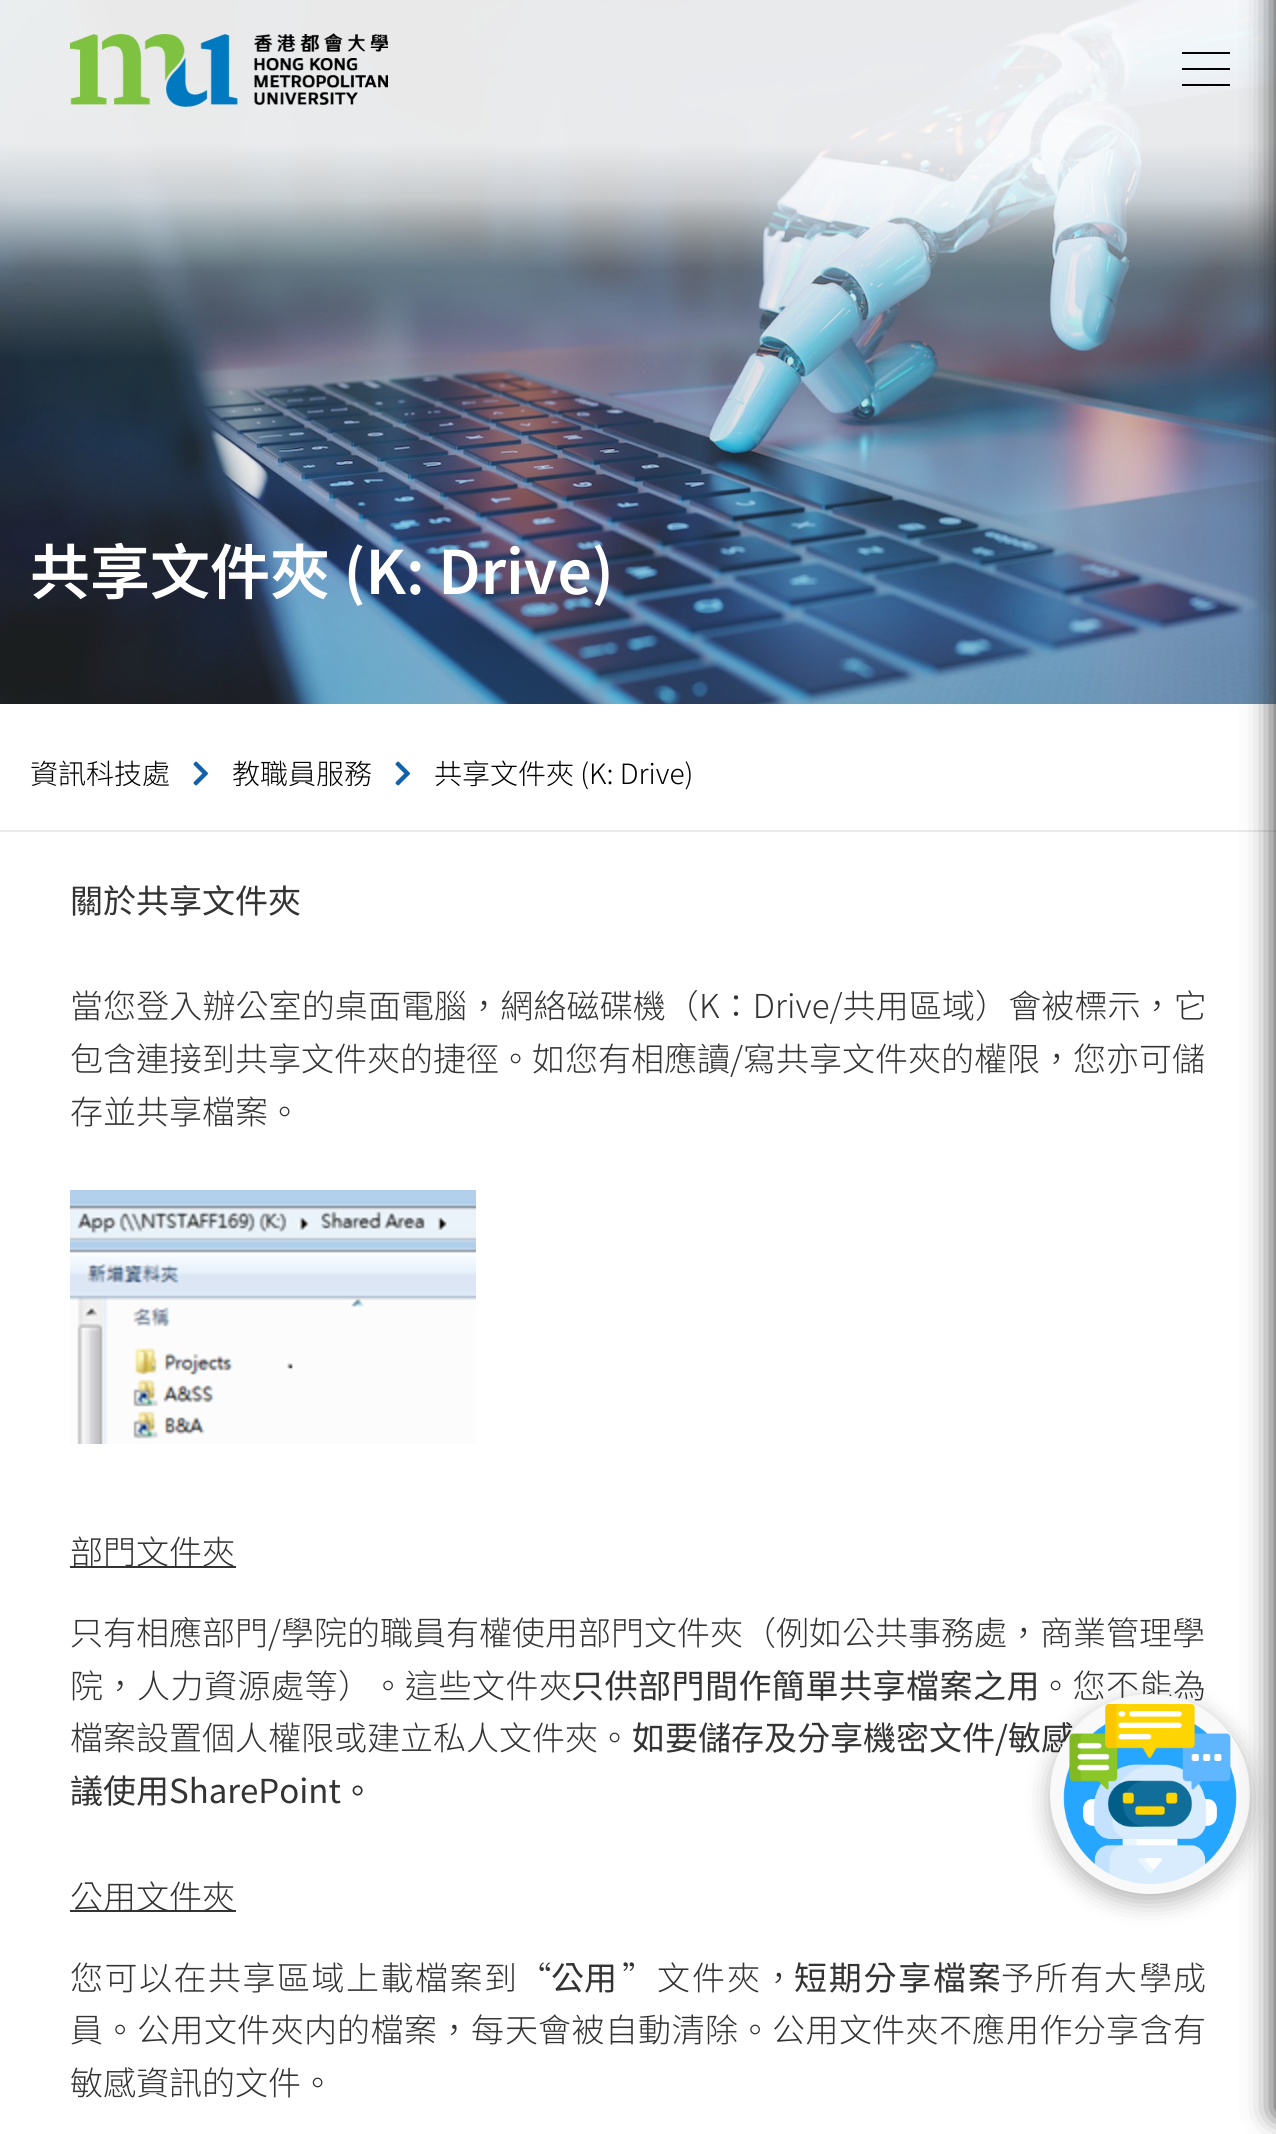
import math
import cairocffi as cairo

surface = cairo.ImageSurface(cairo.FORMAT_RGB24, 1276, 2134)
ctx = cairo.Context(surface)
options = cairo.FontOptions()
options.set_hint_metrics(cairo.HINT_METRICS_OFF)
options.set_hint_style(cairo.HINT_STYLE_NONE)
ctx.set_font_options(options)
ctx.set_miter_limit(4)


def rgb(r, g, b):
    ctx.set_source_rgb(r / 255, g / 255, b / 255)


def face(family, size, italic, bold):
    ctx.select_font_face(family, cairo.FONT_SLANT_ITALIC if italic else cairo.FONT_SLANT_NORMAL, cairo.FONT_WEIGHT_BOLD if bold else cairo.FONT_WEIGHT_NORMAL)
    ctx.set_font_size(size)


def label(x, y, s):
    ctx.move_to(x, y)
    ctx.show_text(s)


def tracked(x, y, s, letter, word):
    ctx.move_to(x, y)
    for ch in s:
        ctx.show_text(ch)
        ctx.rel_move_to(letter + word * (ch == ' '), 0)


def rect(x, y, w, h):
    ctx.rectangle(x, y, w, h)
    ctx.fill()


def rrect(x, y, w, h, r):
    ctx.new_sub_path()
    for i, (u, v) in enumerate([(x + w - r, y + h - r), (x + r, y + h - r), (x + r, y + r), (x + w - r, y + r)]):
        ctx.arc(u, v, r, i * math.pi / 2, (i + 1) * math.pi / 2)
    ctx.close_path()


def soft_shadow(x, y, w, h, r, blur, alpha):
    ctx.push_group_with_content(cairo.CONTENT_ALPHA)
    ctx.set_operator(cairo.OPERATOR_SOURCE)
    for i in range(15, -16, -2):
        e = blur * i / 6
        if min(w, h) + 2 * e > 0:
            ctx.set_source_rgba(0, 0, 0, alpha * math.erfc((i - 1) / 8.5) / 2)
            rrect(x - e, y - e, w + 2 * e, h + 2 * e, max(0, min(r + e + blur * .6, min(w, h) / 2 + e)))
            ctx.fill()
    ctx.mask(ctx.pop_group())


def image(path, x, y, w, h):
    ctx.save()
    ctx.set_source_surface(cairo.ImageSurface.create_from_png(path), x, y)
    ctx.rectangle(x, y, w, h)
    ctx.fill()
    ctx.restore()


rgb(255, 255, 255)
ctx.paint()
image('image1.png', 0, 0, 1276, 704)
image('image0.png', 70, 33, 318, 74)
rgb(0, 0, 0)
rect(1182, 68, 48, 2)
rect(1182, 52, 48, 2)
rect(1182, 84, 48, 2)
rgb(234, 234, 234)
rect(0, 830, 1276, 2)
face('Noto Sans TC Light', 33, 0, 0)
rgb(51, 51, 51)
tracked(1039, 1698, '。您不能為', 0.5, 0)
face('Noto Sans TC', 33, 0, 0)
label(995, 1750, '/敏感')
rgb(0, 0, 0)
soft_shadow(1050, 1702, 200, 200, 100, 12, 0.3)
rgb(249, 249, 249)
ctx.arc(1150, 1794, 100, 0, 2 * math.pi)
ctx.fill()
image('image4.png', 1063, 1704, 174, 180)
rgb(45, 45, 45)
soft_shadow(1276, -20, 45, 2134, 0, 15, 1)
face('Noto Sans TC SemiBold', 60, 0, 0)
rgb(255, 255, 255)
label(30, 594, '共享文件夾 (K: Drive)')
face('Noto Sans TC Light', 28, 0, 0)
rgb(0, 0, 0)
label(30, 784, '資訊科技處')
image('image2.png', 193, 761, 15, 25)
label(232, 784, '教職員服務')
image('image2.png', 395, 761, 15, 25)
label(434, 784, '共享文件夾 (K: Drive)')
face('Noto Sans TC', 33, 0, 0)
rgb(51, 51, 51)
label(70, 913, '關於共享文件夾')
face('Noto Sans TC Light', 33, 0, 0)
tracked(70, 1018, '當您登入辦公室的桌面電腦，網絡磁碟機（K：Drive/共用區域）會被標示，它', 0.1, 0)
label(70, 1071, '包含連接到共享文件夾的捷徑。如您有相應讀/寫共享文件夾的權限，您亦可儲')
label(70, 1124, '存並共享檔案。')
image('image3.png', 70, 1190, 406, 254)
rect(70, 1566, 166, 2)
label(70, 1564, '部門文件夾')
label(70, 1645, '只有相應部門/學院的職員有權使用部門文件夾（例如公共事務處，商業管理學')
tracked(70, 1698, '院，人力資源處等）。這些文件夾', 0.5, 0)
face('Noto Sans TC', 33, 0, 0)
tracked(571, 1698, '只供部門間作簡單共享檔案之用', 0.5, 0)
face('Noto Sans TC Light', 33, 0, 0)
label(70, 1750, '檔案設置個人權限或建立私人文件夾。')
face('Noto Sans TC', 33, 0, 0)
label(632, 1750, '如要儲存及分享機密文件')
label(70, 1803, '議使用SharePoint。')
rect(70, 1910, 166, 2)
face('Noto Sans TC Light', 33, 0, 0)
label(70, 1909, '公用文件夾')
tracked(70, 1990, '您可以在共享區域上載檔案到“', 1.5, 0)
face('Noto Sans TC', 33, 0, 0)
label(551, 1990, '公用')
face('Noto Sans TC Light', 33, 0, 0)
tracked(622, 1990, '”文件夾，', 2, 0)
face('Noto Sans TC', 33, 0, 0)
tracked(794, 1990, '短期分享檔案', 1.75, 0)
face('Noto Sans TC Light', 33, 0, 0)
tracked(1001, 1990, '予', 1.5, 0)
face('Noto Sans SC Light', 33, 0, 0)
tracked(1035, 1990, '所', 1.5, 0)
face('Noto Sans TC Light', 33, 0, 0)
tracked(1070, 1990, '有', 1.5, 0)
face('Noto Sans SC Light', 33, 0, 0)
tracked(1104, 1990, '大', 1.5, 0)
face('Noto Sans TC Light', 33, 0, 0)
tracked(1139, 1990, '學', 1.5, 0)
face('Noto Sans SC Light', 33, 0, 0)
tracked(1173, 1990, '成', 1.5, 0)
face('Noto Sans TC Light', 33, 0, 0)
tracked(70, 2042, '員。', 0.5, 0)
face('Noto Sans SC Light', 33, 0, 0)
tracked(137, 2042, '公用文', 0.5, 0)
face('Noto Sans TC Light', 33, 0, 0)
tracked(237, 2042, '件夾', 0.5, 0)
face('Noto Sans SC Light', 33, 0, 0)
tracked(304, 2042, '内', 0.5, 0)
face('Noto Sans TC Light', 33, 0, 0)
tracked(337, 2042, '的檔案，每', 0.5, 0)
face('Noto Sans SC Light', 33, 0, 0)
tracked(505, 2042, '天', 0.5, 0)
face('Noto Sans TC Light', 33, 0, 0)
tracked(538, 2042, '會被', 0.5, 0)
face('Noto Sans SC Light', 33, 0, 0)
tracked(605, 2042, '自', 0.5, 0)
face('Noto Sans TC Light', 33, 0, 0)
tracked(638, 2042, '動清除。', 0.5, 0)
face('Noto Sans SC Light', 33, 0, 0)
tracked(772, 2042, '公用文', 0.5, 0)
face('Noto Sans TC Light', 33, 0, 0)
tracked(872, 2042, '件夾', 0.5, 0)
face('Noto Sans SC Light', 33, 0, 0)
tracked(939, 2042, '不', 0.5, 0)
face('Noto Sans TC Light', 33, 0, 0)
tracked(972, 2042, '應', 0.5, 0)
face('Noto Sans SC Light', 33, 0, 0)
tracked(1006, 2042, '用作分', 0.5, 0)
face('Noto Sans TC Light', 33, 0, 0)
tracked(1106, 2042, '享含有', 0.5, 0)
label(70, 2095, '敏感資訊的')
face('Noto Sans SC Light', 33, 0, 0)
label(235, 2095, '文')
face('Noto Sans TC Light', 33, 0, 0)
label(268, 2095, '件。')
surface.write_to_png('render.png')
